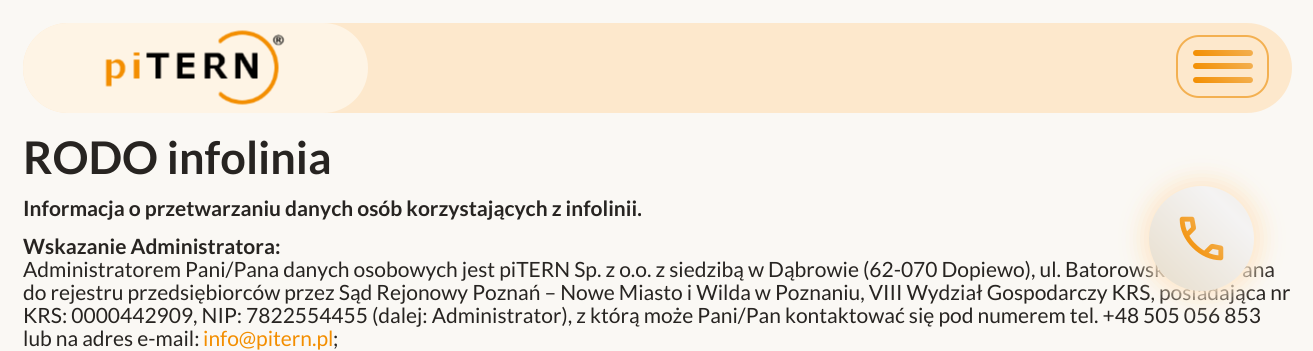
import math
import cairocffi as cairo

surface = cairo.ImageSurface(cairo.FORMAT_RGB24, 1313, 351)
ctx = cairo.Context(surface)
options = cairo.FontOptions()
options.set_hint_metrics(cairo.HINT_METRICS_OFF)
options.set_hint_style(cairo.HINT_STYLE_NONE)
ctx.set_font_options(options)
ctx.set_miter_limit(4)


def rgb(r, g, b):
    ctx.set_source_rgb(r / 255, g / 255, b / 255)


def face(family, size, italic, bold):
    ctx.select_font_face(family, cairo.FONT_SLANT_ITALIC if italic else cairo.FONT_SLANT_NORMAL, cairo.FONT_WEIGHT_BOLD if bold else cairo.FONT_WEIGHT_NORMAL)
    ctx.set_font_size(size)


def label(x, y, s):
    ctx.move_to(x, y)
    ctx.show_text(s)


def rrect(x, y, w, h, r):
    ctx.new_sub_path()
    for i, (u, v) in enumerate([(x + w - r, y + h - r), (x + r, y + h - r), (x + r, y + r), (x + w - r, y + r)]):
        ctx.arc(u, v, r, i * math.pi / 2, (i + 1) * math.pi / 2)
    ctx.close_path()


def soft_shadow(x, y, w, h, r, blur, alpha):
    ctx.push_group_with_content(cairo.CONTENT_ALPHA)
    ctx.set_operator(cairo.OPERATOR_SOURCE)
    for i in range(15, -16, -2):
        e = blur * i / 6
        if min(w, h) + 2 * e > 0:
            ctx.set_source_rgba(0, 0, 0, alpha * math.erfc((i - 1) / 8.5) / 2)
            rrect(x - e, y - e, w + 2 * e, h + 2 * e, max(0, min(r + e + blur * .6, min(w, h) / 2 + e)))
            ctx.fill()
    ctx.mask(ctx.pop_group())


def image(path, x, y, w, h):
    ctx.save()
    ctx.set_source_surface(cairo.ImageSurface.create_from_png(path), x, y)
    ctx.rectangle(x, y, w, h)
    ctx.fill()
    ctx.restore()


rgb(250, 248, 244)
ctx.paint()
rgb(253, 232, 204)
rrect(23, 23, 1269, 90, 45)
ctx.fill()
rgb(254, 244, 229)
rrect(23, 23, 345, 90, 45)
ctx.fill()
image('image0.png', 105, 30, 180, 75)
rrect(1177, 36, 91, 61, 22)
rgb(243, 176, 81)
ctx.stroke()
gradient = cairo.LinearGradient(1239, 36, 1206, 69)
gradient.add_color_stop_rgba(0, 0.953, 0.69, 0.318, 1)
gradient.add_color_stop_rgba(1, 0.953, 0.557, 0, 1)
ctx.set_source(gradient)
rrect(1193, 50, 60, 6, 3)
ctx.fill()
gradient = cairo.LinearGradient(1239, 50, 1206, 83)
gradient.add_color_stop_rgba(0, 0.953, 0.69, 0.318, 1)
gradient.add_color_stop_rgba(1, 0.953, 0.557, 0, 1)
ctx.set_source(gradient)
rrect(1193, 63, 60, 6, 3)
ctx.fill()
gradient = cairo.LinearGradient(1239, 63, 1206, 96)
gradient.add_color_stop_rgba(0, 0.953, 0.69, 0.318, 1)
gradient.add_color_stop_rgba(1, 0.953, 0.557, 0, 1)
ctx.set_source(gradient)
rrect(1193, 77, 60, 6, 3)
ctx.fill()
face('Lato', 45, 0, 1)
rgb(39, 36, 33)
label(23, 174, 'RODO infolinia')
face('Lato', 21, 0, 1)
label(23, 216, 'Informacja o przetwarzaniu danych osób korzystających z infolinii.')
label(23, 254, 'Wskazanie Administratora:')
face('Lato', 21, 0, 0)
label(23, 277, 'Administratorem Pani/Pana danych osobowych jest piTERN Sp. z o.o. z siedzibą w Dąbrowie (62-070 Dopiewo), ul. Batorowsk')
label(1242, 277, 'ana')
label(23, 300, 'do rejestru przedsiębiorców przez Sąd Rejonowy Poznań – Nowe Miasto i Wilda w Poznaniu, VIII Wydział Gospodarczy KRS, posiadająca nr')
label(23, 323, 'KRS: 0000442909, NIP: 7822554455 (dalej: Administrator), z którą może Pani/Pan kontaktować się pod numerem tel. +48 505 056 853')
label(23, 346, 'lub na adres e-mail:')
rgb(243, 142, 0)
label(203, 346, 'info@pitern.pl')
rgb(39, 36, 33)
label(333, 346, ';')
rgb(253, 232, 204)
soft_shadow(1142, 179, 120, 120, 60, 11, 1)
gradient = cairo.LinearGradient(1175, 317, 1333, 160)
gradient.add_color_stop_rgba(0, 0.906, 0.867, 0.796, 1)
gradient.add_color_stop_rgba(0.51, 0.957, 0.953, 0.953, 1)
gradient.add_color_stop_rgba(1, 0.906, 0.867, 0.796, 1)
ctx.set_source(gradient)
ctx.arc(1201.5, 238.5, 52.5, 0, 2 * math.pi)
ctx.fill()
image('image1.png', 1179, 216, 45, 45)
surface.write_to_png('render.png')
